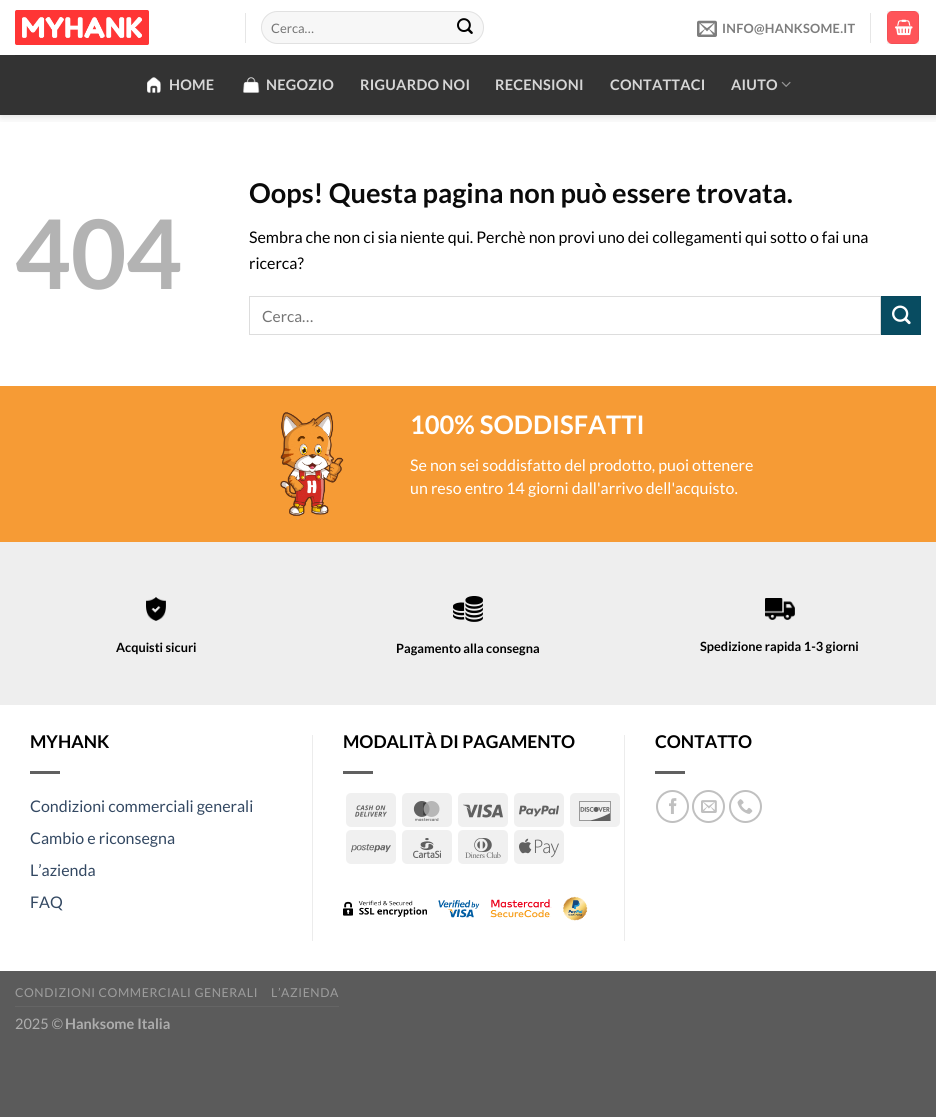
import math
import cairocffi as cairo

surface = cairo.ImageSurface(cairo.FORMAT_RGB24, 936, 1117)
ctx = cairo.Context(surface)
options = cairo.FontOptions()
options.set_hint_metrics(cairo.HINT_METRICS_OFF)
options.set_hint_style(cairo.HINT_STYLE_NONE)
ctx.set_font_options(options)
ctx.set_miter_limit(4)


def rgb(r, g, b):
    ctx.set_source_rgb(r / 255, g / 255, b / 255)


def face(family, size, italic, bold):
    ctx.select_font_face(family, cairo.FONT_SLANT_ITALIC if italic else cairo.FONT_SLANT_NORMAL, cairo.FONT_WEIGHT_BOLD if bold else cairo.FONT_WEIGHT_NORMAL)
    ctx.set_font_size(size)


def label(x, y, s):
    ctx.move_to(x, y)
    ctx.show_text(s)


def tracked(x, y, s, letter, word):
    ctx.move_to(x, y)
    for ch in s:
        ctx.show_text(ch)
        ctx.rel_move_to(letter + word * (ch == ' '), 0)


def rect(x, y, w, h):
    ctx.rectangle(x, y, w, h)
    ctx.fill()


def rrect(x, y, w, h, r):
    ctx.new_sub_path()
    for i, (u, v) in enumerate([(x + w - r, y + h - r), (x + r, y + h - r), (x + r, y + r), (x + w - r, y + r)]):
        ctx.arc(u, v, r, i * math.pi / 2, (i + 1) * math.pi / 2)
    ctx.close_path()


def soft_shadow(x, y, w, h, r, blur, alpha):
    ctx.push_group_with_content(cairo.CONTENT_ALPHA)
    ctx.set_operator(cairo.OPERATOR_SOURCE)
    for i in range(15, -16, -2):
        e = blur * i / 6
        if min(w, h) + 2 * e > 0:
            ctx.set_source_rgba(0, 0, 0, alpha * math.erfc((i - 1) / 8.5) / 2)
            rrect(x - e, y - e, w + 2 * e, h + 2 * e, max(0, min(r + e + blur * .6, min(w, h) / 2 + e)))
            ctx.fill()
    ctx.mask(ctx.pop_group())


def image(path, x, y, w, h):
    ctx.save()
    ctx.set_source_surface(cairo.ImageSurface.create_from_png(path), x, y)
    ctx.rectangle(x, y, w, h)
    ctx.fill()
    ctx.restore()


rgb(91, 91, 91)
ctx.paint()
rgb(255, 255, 255)
rect(0, 0, 936, 971)
ctx.save()
ctx.rectangle(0, 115, 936, 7)
ctx.clip()
rgb(0, 0, 0)
soft_shadow(1, 1, 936, 115, 0, 5, 0.15)
ctx.restore()
image('image0.png', 15, 10, 134, 35)
rgb(230, 230, 230)
rect(245, 13, 1, 30)
rgb(247, 247, 247)
rrect(261, 11, 223, 33, 16.5)
ctx.fill()
rrect(261.5, 11.5, 222, 32, 16)
ctx.set_source_rgba(0, 0, 0, 0.09)
ctx.set_line_width(1)
ctx.stroke()
face('Lato', 13, 0, 0)
rgb(117, 117, 117)
label(271, 33, 'Cerca…')
image('image1.png', 457, 18, 16, 16)
image('image2.png', 697, 20, 20, 17)
face('Lato', 12.75, 0, 1)
rgb(125, 125, 125)
tracked(722, 33, 'INFO@HANKSOME.IT', 0.25, 0)
rgb(230, 230, 230)
rect(870, 13, 1, 30)
rgb(255, 84, 89)
rrect(887, 11, 32, 33, 5)
ctx.fill()
ctx.rectangle(887.5, 11.5, 31, 32)
ctx.set_source_rgba(0, 0, 0, 0.05)
ctx.stroke()
image('image3.png', 895, 19, 18, 17)
rgb(51, 51, 51)
rect(0, 55, 936, 60)
rgb(46, 46, 46)
rect(15, 55, 906, 1)
image('image4.png', 147, 77, 14, 16)
face('Lato', 14.5, 0, 1)
rgb(214, 214, 214)
tracked(169, 90, 'HOME', 0.25, 0)
image('image5.png', 243, 77, 17, 16)
tracked(266, 90, 'NEGOZIO', 0.25, 0)
tracked(360, 90, 'RIGUARDO NOI', 0.25, 0)
tracked(495, 90, 'RECENSIONI', 0.25, 0)
tracked(610, 90, 'CONTATTACI', 0.25, 0)
tracked(731, 90, 'AIUTO', 0.25, 0)
image('image6.png', 781, 81, 10, 6)
face('Lato', 96, 0, 1)
rgb(179, 179, 179)
label(15, 289, '404')
face('Lato', 27.25, 0, 1)
rgb(10, 10, 10)
label(249, 203, 'Oops! Questa pagina non può essere trovata.')
face('Lato', 16, 0, 0)
rgb(0, 0, 0)
label(249, 243, 'Sembra che non ci sia niente qui. Perchè non provi uno dei collegamenti qui sotto o fai una')
label(249, 269, 'ricerca?')
ctx.rectangle(249.5, 296.5, 631, 38)
rgb(221, 221, 221)
ctx.stroke()
face('Lato', 15.5, 0, 0)
rgb(117, 117, 117)
label(262, 322, 'Cerca…')
rgb(8, 76, 97)
ctx.rectangle(881.5, 296.5, 39, 38)
ctx.fill_preserve()
rgb(8, 72, 92)
ctx.stroke()
image('image7.png', 892, 305, 19, 20)
rgb(246, 155, 53)
rect(0, 386, 936, 156)
image('image8.png', 280, 412, 64, 104)
face('Lato', 25.5, 0, 1)
rgb(255, 255, 255)
label(410, 434, '100% SODDISFATTI')
face('Lato', 16, 0, 0)
label(410, 471, 'Se non sei soddisfatto del prodotto, puoi ottenere')
label(410, 494, 'un reso entro 14 giorni dall\'arrivo dell\'acquisto.')
rgb(238, 238, 238)
rect(0, 542, 936, 163)
image('image9.png', 146, 597, 20, 24)
face('Lato', 12.75, 0, 1)
rgb(0, 0, 0)
label(116, 652, 'Acquisti sicuri')
image('image10.png', 453, 596, 30, 26)
label(396, 653, 'Pagamento alla consegna')
image('image11.png', 765, 598, 30, 22)
label(700, 651, 'Spedizione rapida 1-3 giorni')
face('Lato', 17.6, 0, 1)
label(30, 748, 'MYHANK')
rgb(96, 96, 96)
rect(30, 771, 30, 3)
face('Lato', 16, 0, 0)
rgb(51, 72, 98)
label(30, 812, 'Condizioni commerciali generali')
label(30, 844, 'Cambio e riconsegna')
label(30, 876, 'L’azienda')
label(30, 908, 'FAQ')
rgb(236, 236, 236)
rect(312, 735, 1, 206)
face('Lato', 17.6, 0, 1)
rgb(0, 0, 0)
label(343, 748, 'MODALITÀ DI PAGAMENTO')
rgb(96, 96, 96)
rect(343, 771, 30, 3)
rgb(240, 240, 240)
rrect(346, 793, 50, 34, 5)
ctx.fill()
image('image12.png', 355, 805, 32, 12)
rrect(402, 793, 50, 34, 5)
ctx.fill()
image('image13.png', 413, 801, 27, 20)
rrect(458, 793, 50, 34, 5)
ctx.fill()
image('image14.png', 463, 804, 40, 14)
rrect(514, 793, 50, 34, 5)
ctx.fill()
image('image15.png', 519, 805, 40, 12)
rrect(570, 793, 50, 34, 5)
ctx.fill()
image('image16.png', 579, 801, 32, 20)
rrect(346, 830, 50, 34, 5)
ctx.fill()
image('image17.png', 351, 844, 40, 9)
rrect(402, 830, 50, 34, 5)
ctx.fill()
image('image18.png', 413, 838, 28, 20)
rrect(458, 830, 50, 34, 5)
ctx.fill()
image('image19.png', 465, 838, 36, 20)
rrect(514, 830, 50, 34, 5)
ctx.fill()
image('image20.png', 519, 838, 40, 20)
image('image21.png', 343, 896, 245, 25)
rgb(236, 236, 236)
rect(624, 735, 1, 206)
rgb(0, 0, 0)
label(655, 748, 'CONTATTO')
rgb(96, 96, 96)
rect(655, 771, 30, 3)
ctx.new_path()
ctx.arc(672.5, 806.5, 15.5, 0, 2 * math.pi)
rgb(192, 192, 192)
ctx.set_line_width(2)
ctx.stroke()
image('image22.png', 669, 798, 8, 16)
ctx.arc(708.5, 806.5, 15.5, 0, 2 * math.pi)
ctx.stroke()
image('image23.png', 701, 800, 16, 13)
ctx.arc(745.5, 806.5, 15.5, 0, 2 * math.pi)
ctx.stroke()
image('image24.png', 737, 799, 16, 15)
rgb(101, 101, 101)
rect(15, 1006, 324, 1)
face('Lato', 12.25, 0, 0)
rgb(157, 157, 157)
tracked(15, 997, 'CONDIZIONI COMMERCIALI GENERALI', 0.6, 0)
tracked(271, 997, 'L’AZIENDA', 0.6, 0)
face('Lato', 14.5, 0, 0)
rgb(173, 173, 173)
label(15, 1029, '2025 ©')
face('Lato', 14.5, 0, 1)
label(65, 1029, 'Hanksome Italia')
surface.write_to_png('render.png')
